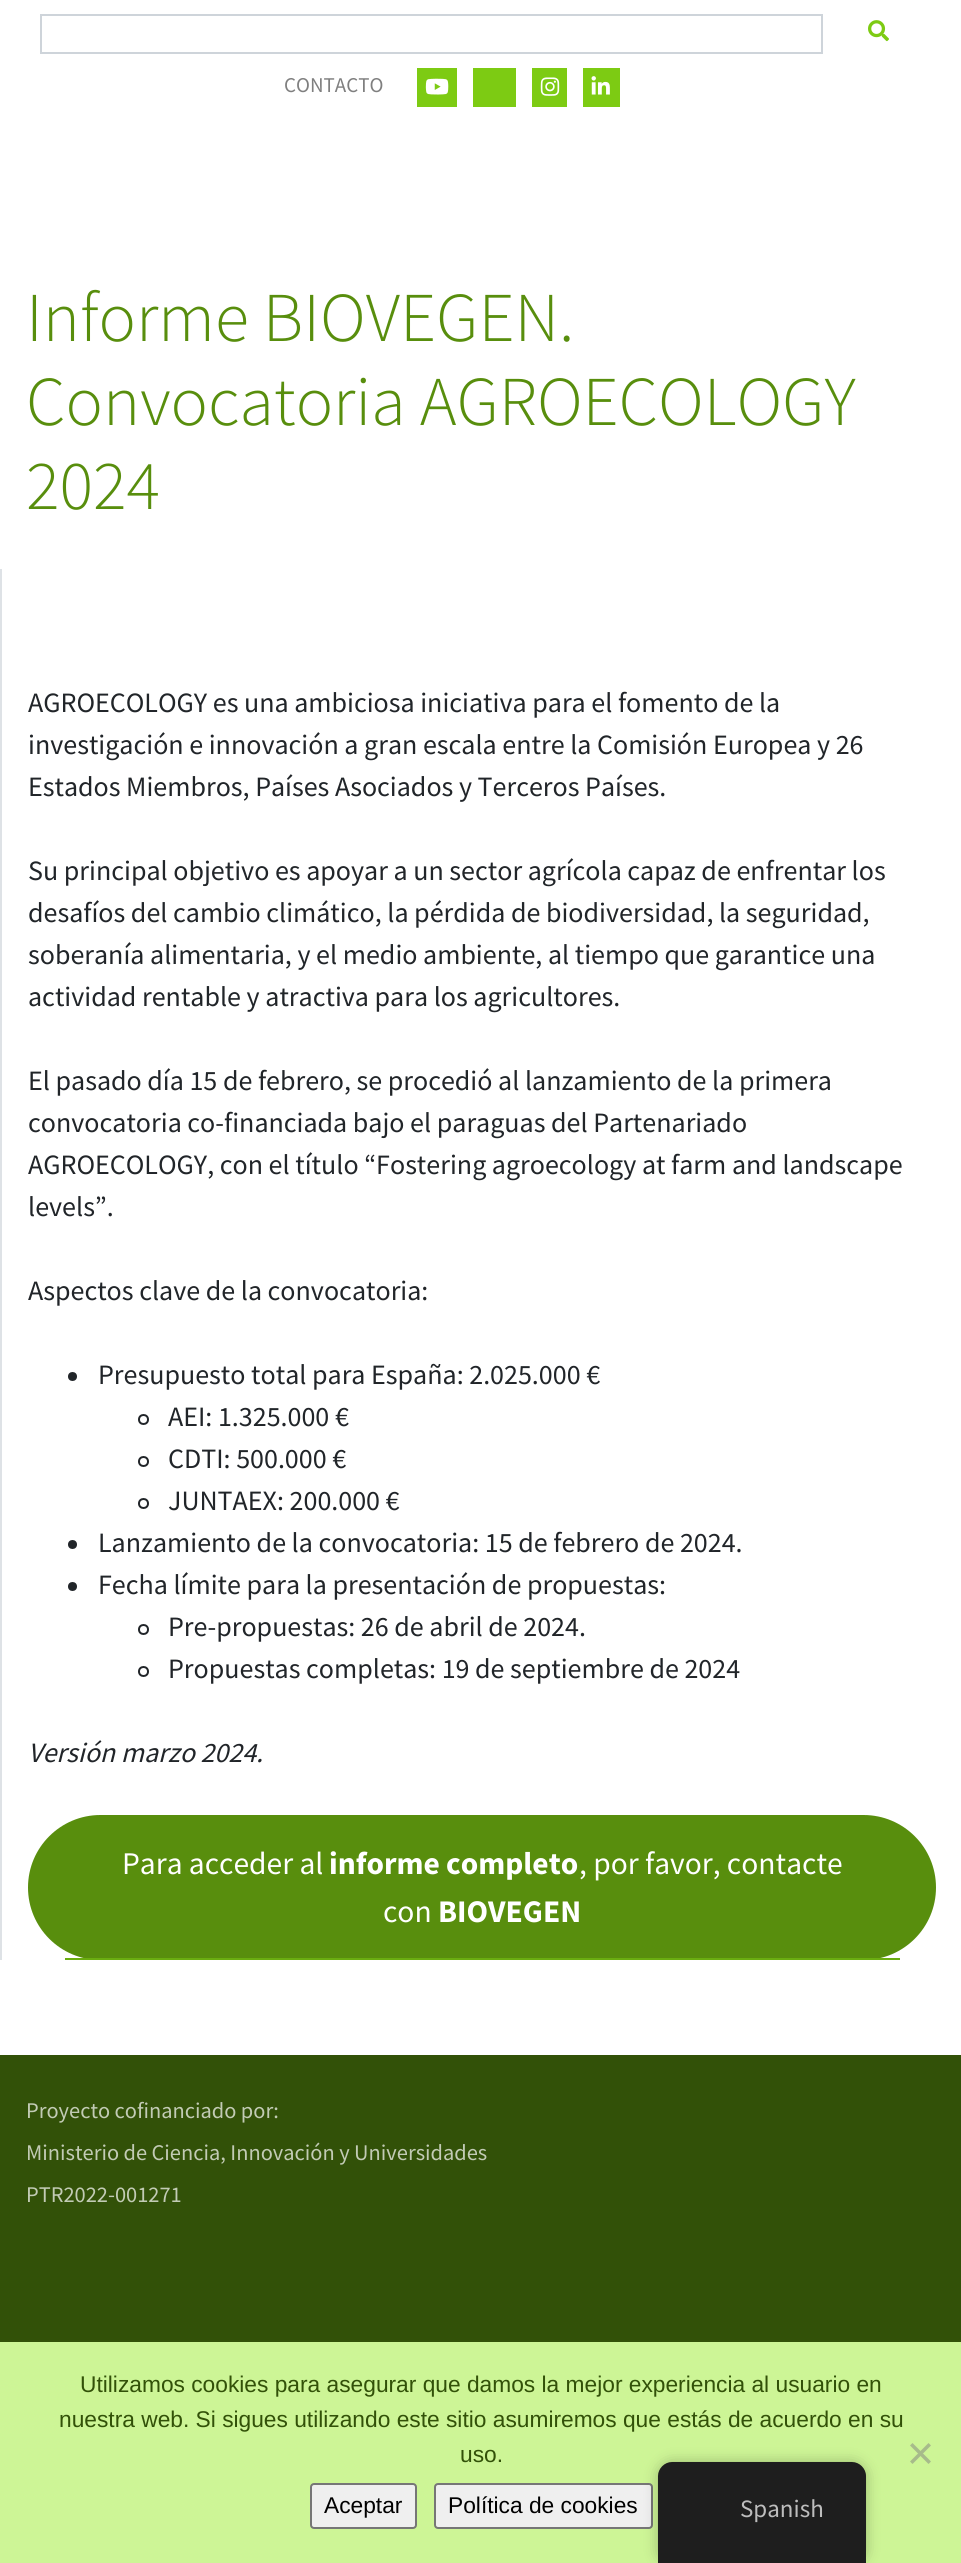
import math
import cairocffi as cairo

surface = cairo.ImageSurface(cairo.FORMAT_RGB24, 961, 2563)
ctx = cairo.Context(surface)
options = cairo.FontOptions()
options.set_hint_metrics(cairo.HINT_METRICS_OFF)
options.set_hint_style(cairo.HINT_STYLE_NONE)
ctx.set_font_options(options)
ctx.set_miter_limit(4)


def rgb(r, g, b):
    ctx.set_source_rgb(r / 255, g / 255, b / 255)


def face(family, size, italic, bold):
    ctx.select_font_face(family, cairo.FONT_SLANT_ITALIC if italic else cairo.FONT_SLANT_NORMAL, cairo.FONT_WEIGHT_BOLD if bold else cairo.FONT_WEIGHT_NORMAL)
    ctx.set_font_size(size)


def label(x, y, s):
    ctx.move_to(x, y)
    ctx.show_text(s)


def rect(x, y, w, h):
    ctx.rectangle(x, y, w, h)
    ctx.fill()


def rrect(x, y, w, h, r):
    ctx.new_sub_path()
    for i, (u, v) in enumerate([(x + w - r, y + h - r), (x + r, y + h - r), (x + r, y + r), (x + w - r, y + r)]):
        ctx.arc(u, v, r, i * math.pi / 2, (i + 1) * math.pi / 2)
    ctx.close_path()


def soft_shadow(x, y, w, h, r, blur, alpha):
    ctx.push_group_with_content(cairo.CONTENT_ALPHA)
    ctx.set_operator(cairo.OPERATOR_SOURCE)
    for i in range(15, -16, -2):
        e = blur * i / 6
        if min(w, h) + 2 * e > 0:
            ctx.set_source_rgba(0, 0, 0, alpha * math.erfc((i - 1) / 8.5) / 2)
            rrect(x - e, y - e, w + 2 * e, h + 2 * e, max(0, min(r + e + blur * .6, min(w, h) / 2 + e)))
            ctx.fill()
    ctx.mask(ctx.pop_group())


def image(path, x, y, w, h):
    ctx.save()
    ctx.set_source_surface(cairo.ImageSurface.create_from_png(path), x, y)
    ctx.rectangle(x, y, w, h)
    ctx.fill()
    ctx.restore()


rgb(255, 255, 255)
ctx.paint()
ctx.rectangle(41, 15, 781, 38)
rgb(206, 212, 218)
ctx.stroke()
image('image0.png', 868, 20, 21, 22)
face('Source Sans Pro', 21, 0, 0)
rgb(127, 127, 127)
label(284, 92, 'CONTACTO')
rgb(125, 203, 19)
rect(417, 68, 40, 39)
image('image1.png', 425, 78, 24, 17)
rect(473, 68, 43, 39)
rect(532, 68, 35, 39)
image('image2.png', 540, 77, 20, 19)
rect(583, 68, 37, 39)
image('image3.png', 591, 76, 19, 19)
face('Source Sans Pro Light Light', 70, 0, 0)
rgb(88, 142, 13)
label(26, 341, 'Informe BIOVEGEN.')
label(26, 425, 'Convocatoria AGROECOLOGY')
label(26, 509, '2024')
rgb(222, 226, 230)
rect(0, 569, 2, 1391)
face('Source Sans Pro', 28, 0, 0)
rgb(33, 37, 41)
label(28, 712, 'AGROECOLOGY es una ambiciosa iniciativa para el fomento de la')
label(28, 754, 'investigación e innovación a gran escala entre la Comisión Europea y 26')
label(28, 796, 'Estados Miembros, Países Asociados y Terceros Países.')
label(28, 880, 'Su principal objetivo es apoyar a un sector agrícola capaz de enfrentar los')
label(28, 922, 'desafíos del cambio climático, la pérdida de biodiversidad, la seguridad,')
label(28, 964, 'soberanía alimentaria, y el medio ambiente, al tiempo que garantice una')
label(28, 1006, 'actividad rentable y atractiva para los agricultores.')
label(28, 1090, 'El pasado día 15 de febrero, se procedió al lanzamiento de la primera')
label(28, 1132, 'convocatoria co-financiada bajo el paraguas del Partenariado')
label(28, 1174, 'AGROECOLOGY, con el título “Fostering agroecology at farm and landscape')
label(28, 1216, 'levels”.')
label(28, 1300, 'Aspectos clave de la convocatoria:')
ctx.new_path()
ctx.arc(72.5, 1376.5, 4.5, 0, 2 * math.pi)
ctx.fill()
label(98, 1384, 'Presupuesto total para España: 2.025.000 €')
ctx.new_path()
ctx.arc(143.5, 1419.5, 4.5, 0, 2 * math.pi)
ctx.stroke()
label(168, 1426, 'AEI: 1.325.000 €')
ctx.new_path()
ctx.arc(143.5, 1461.5, 4.5, 0, 2 * math.pi)
ctx.stroke()
label(168, 1468, 'CDTI: 500.000 €')
ctx.new_path()
ctx.arc(143.5, 1503.5, 4.5, 0, 2 * math.pi)
ctx.stroke()
label(168, 1510, 'JUNTAEX: 200.000 €')
ctx.new_path()
ctx.arc(72.5, 1544.5, 4.5, 0, 2 * math.pi)
ctx.fill()
label(98, 1552, 'Lanzamiento de la convocatoria: 15 de febrero de 2024.')
ctx.new_path()
ctx.arc(72.5, 1586.5, 4.5, 0, 2 * math.pi)
ctx.fill()
label(98, 1594, 'Fecha límite para la presentación de propuestas:')
ctx.new_path()
ctx.arc(143.5, 1629.5, 4.5, 0, 2 * math.pi)
ctx.stroke()
label(168, 1636, 'Pre-propuestas: 26 de abril de 2024.')
ctx.new_path()
ctx.arc(143.5, 1671.5, 4.5, 0, 2 * math.pi)
ctx.stroke()
label(168, 1678, 'Propuestas completas: 19 de septiembre de 2024')
face('Source Sans Pro', 28, 1, 0)
label(28, 1762, 'Versión marzo 2024.')
rgb(88, 142, 13)
rrect(28, 1815, 908, 145, 72.5)
ctx.fill()
rgb(106, 173, 16)
rect(65, 1958, 835, 2)
face('Source Sans Pro', 31.5, 0, 0)
rgb(255, 255, 255)
label(122, 1874, 'Para acceder al')
face('Source Sans Pro', 31.5, 0, 1)
label(329, 1874, 'informe completo')
face('Source Sans Pro', 31.5, 0, 0)
label(579, 1874, ', por favor, contacte')
label(383, 1922, 'con')
face('Source Sans Pro', 31.5, 0, 1)
label(438, 1922, 'BIOVEGEN')
rgb(50, 81, 8)
rect(0, 2055, 961, 287)
face('Source Sans Pro', 22.4, 0, 0)
rgb(194, 203, 181)
label(26, 2118, 'Proyecto cofinanciado por:')
label(26, 2160, 'Ministerio de Ciencia, Innovación y Universidades')
label(26, 2202, 'PTR2022-001271')
rgb(205, 245, 150)
rect(0, 2342, 961, 221)
face('Liberation Sans', 22.75, 0, 0)
rgb(50, 81, 8)
label(80, 2392, 'Utilizamos cookies para asegurar que damos la mejor experiencia al usuario en')
label(59, 2427, 'nuestra web. Si sigues utilizando este sitio asumiremos que estás de acuerdo en su')
label(460, 2462, 'uso.')
rgb(167, 187, 139)
ctx.new_path()
ctx.move_to(928.5, 2443)
ctx.line_to(931, 2445.5)
ctx.line_to(912.5, 2464)
ctx.line_to(910, 2461.5)
ctx.close_path()
ctx.fill()
ctx.new_path()
ctx.move_to(910, 2445.5)
ctx.line_to(912.5, 2443)
ctx.line_to(931, 2461.5)
ctx.line_to(928.5, 2464)
ctx.close_path()
ctx.fill()
rgb(239, 239, 239)
rrect(311, 2484, 105, 44, 3)
ctx.fill_preserve()
rgb(118, 118, 118)
ctx.stroke()
rgb(0, 0, 0)
label(324, 2513, 'Aceptar')
rgb(239, 239, 239)
rrect(435, 2484, 217, 44, 3)
ctx.fill_preserve()
rgb(118, 118, 118)
ctx.stroke()
rgb(0, 0, 0)
label(448, 2513, 'Política de cookies')
rgb(0, 0, 0)
soft_shadow(658, 2462, 208, 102, 14, 7, 0.25)
rgb(30, 30, 30)
ctx.new_path()
ctx.move_to(672, 2462)
ctx.line_to(852, 2462)
ctx.curve_to(859.5, 2462, 866, 2468.5, 866, 2476)
ctx.line_to(866, 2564)
ctx.line_to(658, 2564)
ctx.line_to(658, 2476)
ctx.curve_to(658, 2468.5, 664.5, 2462, 672, 2462)
ctx.close_path()
ctx.fill()
face('Source Sans Pro', 25, 0, 0)
rgb(189, 189, 189)
label(740, 2517, 'Spanish')
surface.write_to_png('render.png')
